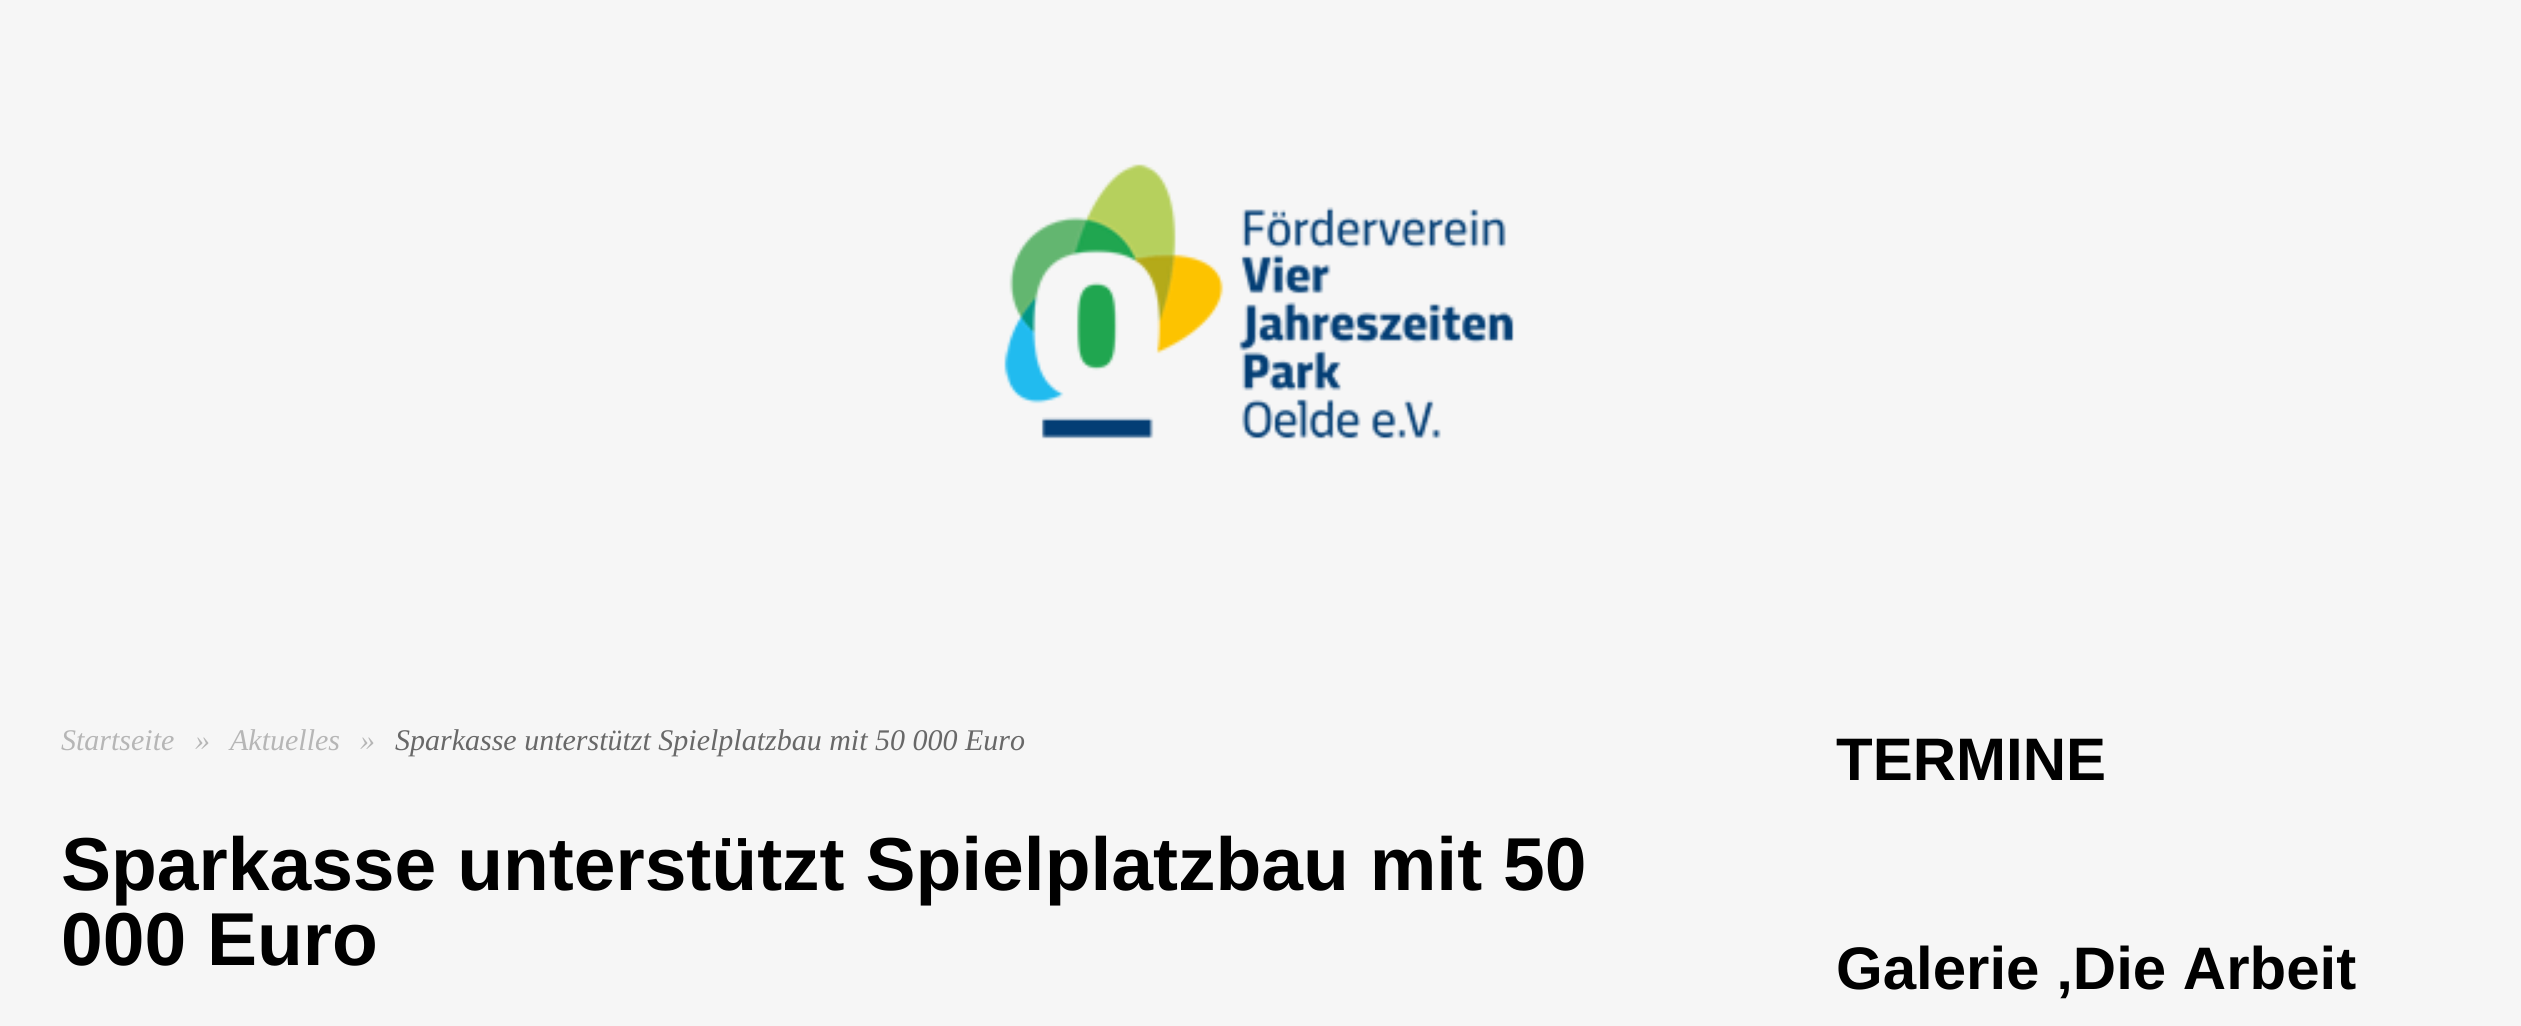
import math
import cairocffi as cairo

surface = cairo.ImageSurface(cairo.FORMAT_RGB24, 2521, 1026)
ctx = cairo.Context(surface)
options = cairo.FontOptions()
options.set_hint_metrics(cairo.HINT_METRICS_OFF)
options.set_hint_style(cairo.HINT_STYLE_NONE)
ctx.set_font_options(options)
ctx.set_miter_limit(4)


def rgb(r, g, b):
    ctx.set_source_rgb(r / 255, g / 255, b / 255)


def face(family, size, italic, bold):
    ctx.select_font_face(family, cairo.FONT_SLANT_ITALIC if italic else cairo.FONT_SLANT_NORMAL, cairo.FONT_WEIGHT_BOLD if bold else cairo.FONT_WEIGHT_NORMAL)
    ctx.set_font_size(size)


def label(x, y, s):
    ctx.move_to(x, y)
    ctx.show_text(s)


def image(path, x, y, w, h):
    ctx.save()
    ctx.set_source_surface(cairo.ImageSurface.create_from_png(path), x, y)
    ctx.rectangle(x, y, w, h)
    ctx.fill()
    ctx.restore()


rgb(246, 246, 246)
ctx.paint()
image('image0.png', 1004, 164, 510, 275)
face('Liberation Serif', 30, 1, 0)
rgb(182, 182, 182)
label(61, 750, 'Startseite')
label(195, 750, '»')
label(230, 750, 'Aktuelles')
label(360, 750, '»')
rgb(104, 104, 104)
label(395, 750, 'Sparkasse unterstützt Spielplatzbau mit 50 000 Euro')
face('Liberation Sans', 75, 0, 1)
rgb(0, 0, 0)
label(61, 890, 'Sparkasse unterstützt Spielplatzbau mit 50')
label(61, 965, '000 Euro')
face('Liberation Sans', 60, 0, 1)
label(1836, 780, 'TERMINE')
label(1836, 989, 'Galerie ‚Die Arbeit')
surface.write_to_png('render.png')
